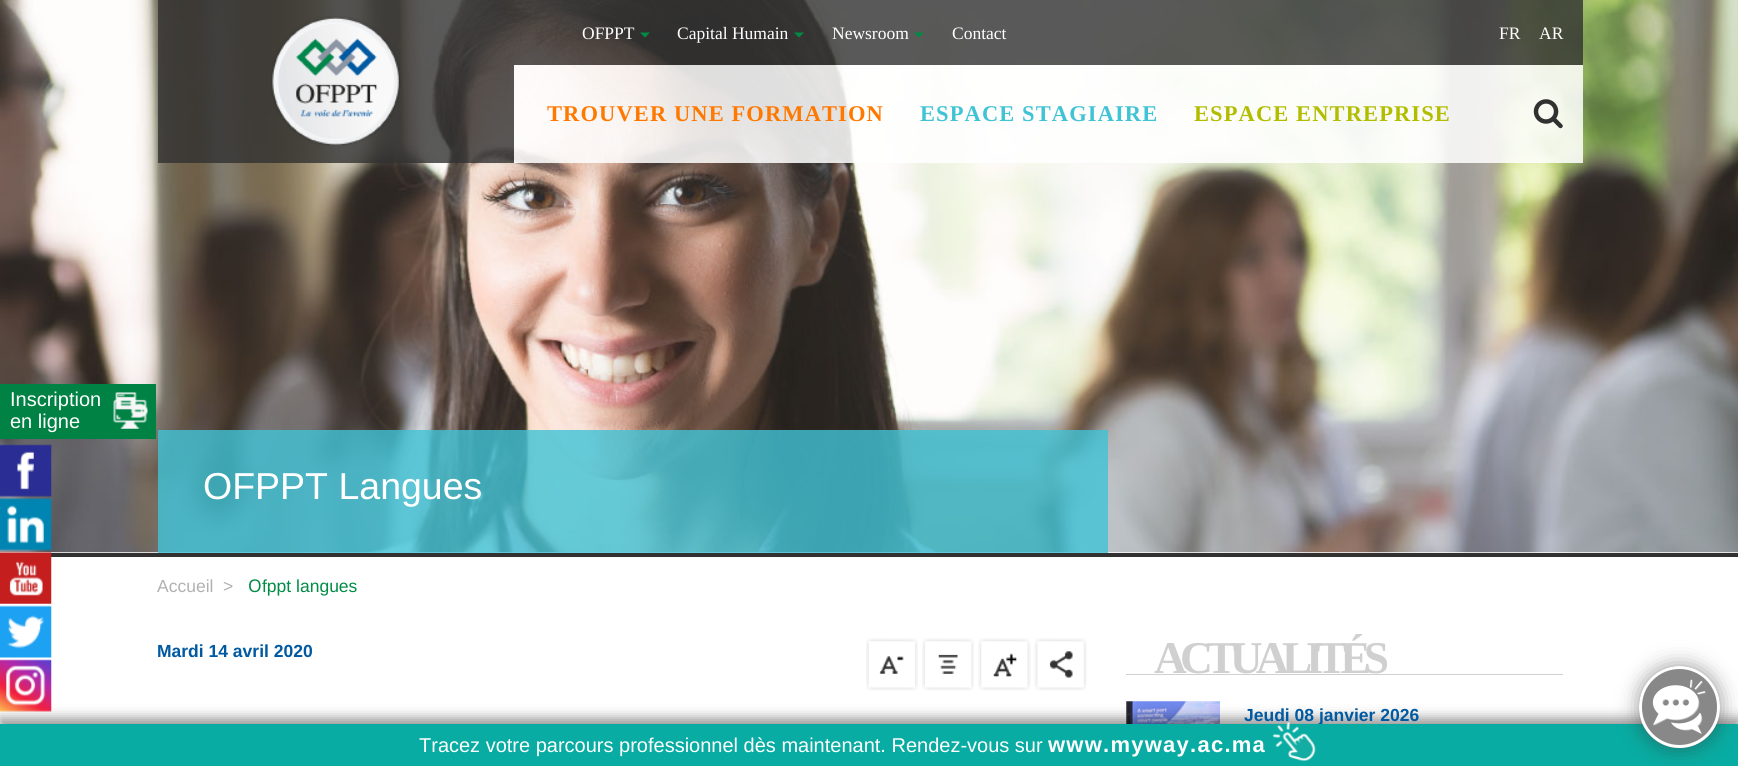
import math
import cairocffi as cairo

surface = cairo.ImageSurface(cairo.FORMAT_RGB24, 1738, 766)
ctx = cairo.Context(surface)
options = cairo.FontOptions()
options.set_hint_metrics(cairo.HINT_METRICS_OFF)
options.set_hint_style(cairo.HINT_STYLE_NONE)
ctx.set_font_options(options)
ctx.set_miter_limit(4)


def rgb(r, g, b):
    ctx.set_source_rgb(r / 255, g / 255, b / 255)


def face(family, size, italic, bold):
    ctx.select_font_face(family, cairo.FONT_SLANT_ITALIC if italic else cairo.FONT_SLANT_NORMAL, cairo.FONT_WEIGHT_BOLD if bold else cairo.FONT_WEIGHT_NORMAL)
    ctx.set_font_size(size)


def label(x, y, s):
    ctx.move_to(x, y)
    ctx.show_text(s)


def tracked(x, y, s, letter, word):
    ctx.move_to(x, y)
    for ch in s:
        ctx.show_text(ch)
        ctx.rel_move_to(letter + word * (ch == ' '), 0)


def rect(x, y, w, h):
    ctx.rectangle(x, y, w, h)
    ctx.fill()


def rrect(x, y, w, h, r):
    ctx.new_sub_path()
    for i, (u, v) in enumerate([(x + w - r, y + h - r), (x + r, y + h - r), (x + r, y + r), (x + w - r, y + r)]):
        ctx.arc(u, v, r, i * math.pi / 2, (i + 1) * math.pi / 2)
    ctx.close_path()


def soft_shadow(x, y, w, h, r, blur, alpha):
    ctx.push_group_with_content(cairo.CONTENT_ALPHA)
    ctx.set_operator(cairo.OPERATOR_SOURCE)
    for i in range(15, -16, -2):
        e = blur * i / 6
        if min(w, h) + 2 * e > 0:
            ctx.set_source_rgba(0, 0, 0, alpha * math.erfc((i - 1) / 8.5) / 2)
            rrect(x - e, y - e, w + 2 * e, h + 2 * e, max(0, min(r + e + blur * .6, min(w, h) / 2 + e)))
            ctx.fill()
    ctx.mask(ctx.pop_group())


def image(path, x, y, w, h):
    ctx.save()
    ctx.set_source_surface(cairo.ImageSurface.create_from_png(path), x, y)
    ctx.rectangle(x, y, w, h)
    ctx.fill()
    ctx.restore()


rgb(255, 255, 255)
ctx.paint()
image('image8.png', 0, 0, 1738, 553)
ctx.set_source_rgba(0.192, 0.192, 0.192, 0.8)
rect(158, 0, 356, 163)
image('image0.png', 271, 16, 130, 130)
rect(514, 0, 1069, 65)
face('Liberation Serif', 17.5, 0, 0)
rgb(255, 255, 255)
label(582, 39, 'OFPPT')
rgb(0, 139, 69)
ctx.new_path()
ctx.move_to(640, 32.5)
ctx.line_to(650, 32.5)
ctx.line_to(645, 37.5)
ctx.close_path()
ctx.fill()
rgb(255, 255, 255)
label(677, 39, 'Capital Humain')
rgb(0, 139, 69)
ctx.new_path()
ctx.move_to(794, 32.5)
ctx.line_to(804, 32.5)
ctx.line_to(799, 37.5)
ctx.close_path()
ctx.fill()
rgb(255, 255, 255)
label(832, 39, 'Newsroom')
rgb(0, 139, 69)
ctx.new_path()
ctx.move_to(914, 32.5)
ctx.line_to(924, 32.5)
ctx.line_to(919, 37.5)
ctx.close_path()
ctx.fill()
rgb(255, 255, 255)
label(952, 39, 'Contact')
label(1499, 39, 'FR')
label(1539, 39, 'AR')
ctx.set_source_rgba(1, 1, 1, 0.85)
rect(514, 65, 1069, 98)
face('Liberation Serif', 22.5, 0, 1)
rgb(255, 120, 0)
tracked(547, 121, 'TROUVER UNE FORMATION', 1.1, 0)
rgb(64, 195, 213)
tracked(920, 121, 'ESPACE STAGIAIRE', 1.1, 0)
rgb(178, 189, 0)
tracked(1194, 121, 'ESPACE ENTREPRISE', 1.1, 0)
image('image1.png', 1533, 99, 30, 30)
rgb(0, 130, 69)
rect(0, 384, 156, 55)
face('Liberation Sans', 20, 0, 0)
rgb(255, 255, 255)
label(10, 406, 'Inscription')
label(10, 428, 'en ligne')
image('image2.png', 113, 392, 35, 37)
image('image3.png', 0, 444, 52, 53)
image('image4.png', 0, 498, 52, 53)
rgb(49, 49, 49)
rect(51, 553, 1687, 4)
image('image5.png', 0, 551, 52, 53)
image('image6.png', 0, 605, 52, 53)
image('image13.png', 1126, 701, 94, 23)
rgb(0, 0, 0)
soft_shadow(0, 718, 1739, 42, 0, 6, 0.41)
image('image7.png', 0, 659, 52, 53)
ctx.set_source_rgba(0.251, 0.765, 0.835, 0.8)
rect(158, 430, 950, 123)
face('Liberation Sans', 37.5, 0, 0)
rgb(255, 255, 255)
label(203, 499, 'OFPPT Langues')
face('Liberation Sans', 17.5, 0, 0)
rgb(177, 177, 177)
label(157, 592, 'Accueil')
label(223, 592, '>')
face('Noto Sans', 17.5, 0, 0)
rgb(0, 139, 69)
label(248, 592, 'O')
face('Liberation Sans', 17.5, 0, 0)
label(262, 592, 'fppt langues')
face('Liberation Sans', 17.5, 0, 1)
rgb(0, 89, 161)
label(157, 657, 'Mardi 14 avril 2020')
image('image9.png', 866, 638, 52, 53)
image('image10.png', 922, 638, 52, 53)
image('image11.png', 978, 638, 53, 53)
image('image12.png', 1034, 638, 53, 53)
face('Liberation Serif', 45.5, 0, 1)
rgb(208, 208, 208)
tracked(1154, 673, 'ACTUALITÉS', -6.75, 0)
rect(1126, 674, 437, 1)
face('Liberation Sans', 17.5, 0, 1)
rgb(0, 89, 161)
label(1244, 721, 'Jeudi 08 janvier 2026')
rgb(8, 172, 162)
rect(0, 724, 1738, 42)
face('Liberation Sans', 20, 0, 0)
rgb(255, 255, 255)
label(419, 752, 'Tracez votre parcours professionnel dès maintenant. Rendez-vous sur')
face('Liberation Sans', 22, 0, 1)
tracked(1048, 752, 'www.myway.ac.ma', 1.25, 0)
image('image14.png', 1272, 722, 44, 39)
rgb(50, 50, 50)
soft_shadow(1639, 666, 81, 82, 40.5, 10.5, 0.5)
rgb(136, 136, 136)
rrect(1639, 666, 81, 82, 40.5)
ctx.fill()
image('image15.png', 1652, 679, 54, 55)
rrect(1640.5, 667.5, 78, 79, 39)
rgb(255, 255, 255)
ctx.set_line_width(3)
ctx.stroke()
surface.write_to_png('render.png')
